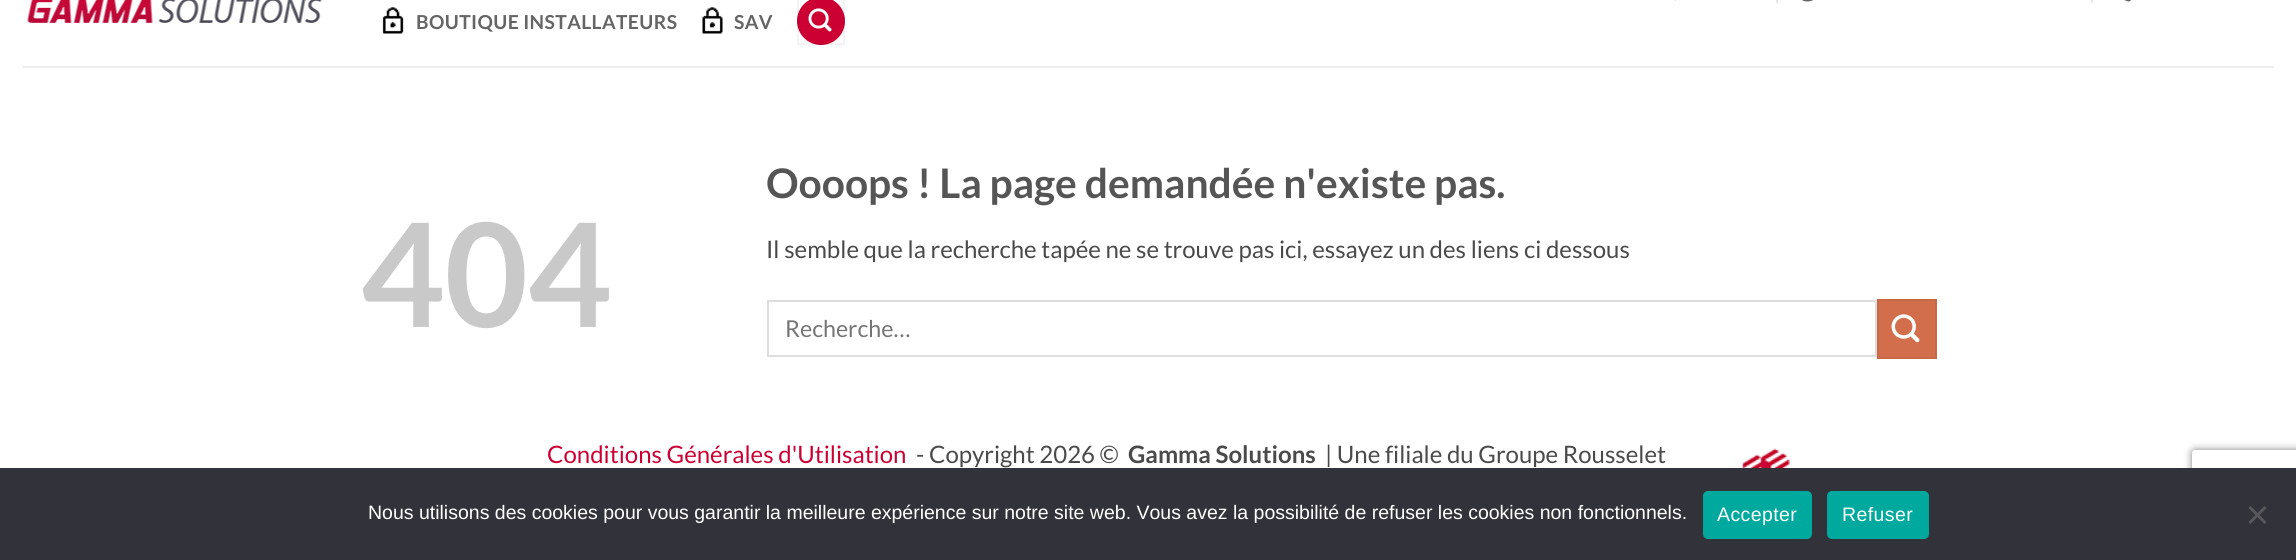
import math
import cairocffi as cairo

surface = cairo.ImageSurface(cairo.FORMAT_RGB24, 2296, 560)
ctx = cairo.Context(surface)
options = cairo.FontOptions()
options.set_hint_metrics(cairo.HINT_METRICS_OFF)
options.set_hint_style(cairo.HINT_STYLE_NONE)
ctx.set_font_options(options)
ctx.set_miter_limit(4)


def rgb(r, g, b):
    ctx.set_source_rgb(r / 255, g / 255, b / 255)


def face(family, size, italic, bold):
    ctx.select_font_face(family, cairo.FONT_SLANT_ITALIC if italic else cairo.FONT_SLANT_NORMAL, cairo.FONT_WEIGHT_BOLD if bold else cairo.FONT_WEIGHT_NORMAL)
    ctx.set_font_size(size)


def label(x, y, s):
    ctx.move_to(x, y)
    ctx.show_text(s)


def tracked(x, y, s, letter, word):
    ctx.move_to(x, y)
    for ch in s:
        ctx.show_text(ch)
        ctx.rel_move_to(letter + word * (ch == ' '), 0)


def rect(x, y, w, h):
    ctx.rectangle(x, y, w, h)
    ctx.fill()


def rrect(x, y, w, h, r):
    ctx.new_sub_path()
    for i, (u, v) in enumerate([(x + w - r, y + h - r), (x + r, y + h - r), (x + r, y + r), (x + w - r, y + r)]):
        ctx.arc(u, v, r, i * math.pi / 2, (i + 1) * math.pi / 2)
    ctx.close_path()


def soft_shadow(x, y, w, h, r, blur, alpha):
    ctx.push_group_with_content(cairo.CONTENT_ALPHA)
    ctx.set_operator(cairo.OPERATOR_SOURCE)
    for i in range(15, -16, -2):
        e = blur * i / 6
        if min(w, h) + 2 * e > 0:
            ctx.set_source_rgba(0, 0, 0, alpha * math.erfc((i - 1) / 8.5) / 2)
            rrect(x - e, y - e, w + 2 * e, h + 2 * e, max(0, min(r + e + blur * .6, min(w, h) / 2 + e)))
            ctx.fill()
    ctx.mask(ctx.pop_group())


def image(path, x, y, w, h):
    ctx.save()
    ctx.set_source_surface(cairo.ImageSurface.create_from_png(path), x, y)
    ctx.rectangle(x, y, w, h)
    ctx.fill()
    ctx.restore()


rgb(255, 255, 255)
ctx.paint()
image('image0.png', 27, 0, 295, 23)
rgb(228, 228, 228)
rect(1675, 0, 1, 1)
rgb(230, 230, 230)
rect(1776, 0, 2, 3)
image('image1.png', 1802, 0, 11, 2)
rect(2091, 0, 2, 3)
image('image2.png', 2124, 0, 7, 2)
image('image3.png', 382, 7, 22, 27)
face('Lato', 19.25, 0, 1)
rgb(101, 101, 101)
tracked(416, 29, 'BOUTIQUE INSTALLATEURS', 0.4, 0)
image('image4.png', 702, 7, 21, 27)
tracked(734, 29, 'SAV', 0.4, 0)
rgb(204, 0, 51)
ctx.new_path()
ctx.arc(821, 21, 24, 0, 2 * math.pi)
ctx.fill()
ctx.rectangle(798, -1, 46, 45)
ctx.set_source_rgba(0, 0, 0, 0.05)
ctx.stroke()
image('image5.png', 808, 8, 24, 24)
rgb(237, 237, 237)
rect(23, 66, 2251, 2)
face('Lato', 144, 0, 1)
rgb(201, 201, 201)
label(361, 327, '404')
face('Lato', 40.75, 0, 1)
rgb(85, 85, 85)
label(766, 198, 'Oooops ! La page demandée n\'existe pas.')
face('Lato', 24, 0, 0)
rgb(74, 74, 74)
label(766, 258, 'Il semble que la recherche tapée ne se trouve pas ici, essayez un des liens ci dessous')
ctx.rectangle(768, 301, 1108, 55)
rgb(221, 221, 221)
ctx.stroke()
face('Lato', 23.25, 0, 0)
rgb(117, 117, 117)
label(785, 337, 'Recherche…')
rgb(210, 110, 75)
ctx.rectangle(1878, 300, 58, 58)
ctx.fill_preserve()
rgb(200, 105, 71)
ctx.stroke()
image('image6.png', 1891, 314, 29, 29)
face('Lato', 24, 0, 0)
rgb(204, 0, 51)
label(547, 463, 'Conditions Générales d\'Utilisation')
rgb(74, 74, 74)
label(916, 463, '- Copyright 2026 ©')
face('Lato', 24, 0, 1)
label(1128, 463, 'Gamma Solutions')
face('Lato', 24, 0, 0)
label(1325, 463, '| Une filiale du Groupe Rousselet')
image('image7.png', 1713, 448, 106, 20)
ctx.save()
ctx.set_fill_rule(cairo.FILL_RULE_EVEN_ODD)
ctx.new_path()
ctx.move_to(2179, 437)
ctx.line_to(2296, 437)
ctx.line_to(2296, 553)
ctx.line_to(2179, 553)
ctx.close_path()
ctx.move_to(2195, 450)
ctx.line_to(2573, 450)
ctx.curve_to(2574.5, 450, 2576, 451.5, 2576, 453)
ctx.line_to(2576, 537)
ctx.curve_to(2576, 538.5, 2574.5, 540, 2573, 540)
ctx.line_to(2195, 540)
ctx.curve_to(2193.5, 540, 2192, 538.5, 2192, 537)
ctx.line_to(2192, 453)
ctx.curve_to(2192, 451.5, 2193.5, 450, 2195, 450)
ctx.close_path()
ctx.clip()
rgb(128, 128, 128)
soft_shadow(2192, 450, 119, 90, 3, 4, 1)
ctx.restore()
rgb(50, 50, 58)
rect(0, 468, 2296, 92)
face('Liberation Sans', 19.5, 0, 0)
rgb(255, 255, 255)
label(368, 519, 'Nous utilisons des cookies pour vous garantir la meilleure expérience sur notre site web. Vous avez la possibilité de refuser les cookies non fonctionnels.')
rgb(0, 169, 157)
rrect(1703, 491, 109, 48, 5)
ctx.fill()
rgb(255, 255, 255)
tracked(1717, 521, 'Accepter', 0.4, 0)
rgb(0, 169, 157)
rrect(1827, 491, 102, 48, 5)
ctx.fill()
rgb(255, 255, 255)
tracked(1842, 521, 'Refuser', 0.4, 0)
rgb(89, 89, 93)
ctx.new_path()
ctx.move_to(2264.5, 506)
ctx.line_to(2266.5, 508)
ctx.line_to(2250.5, 524)
ctx.line_to(2248.5, 522)
ctx.close_path()
ctx.fill()
ctx.new_path()
ctx.move_to(2248.5, 508)
ctx.line_to(2250.5, 506)
ctx.line_to(2266.5, 522)
ctx.line_to(2264.5, 524)
ctx.close_path()
ctx.fill()
surface.write_to_png('render.png')
